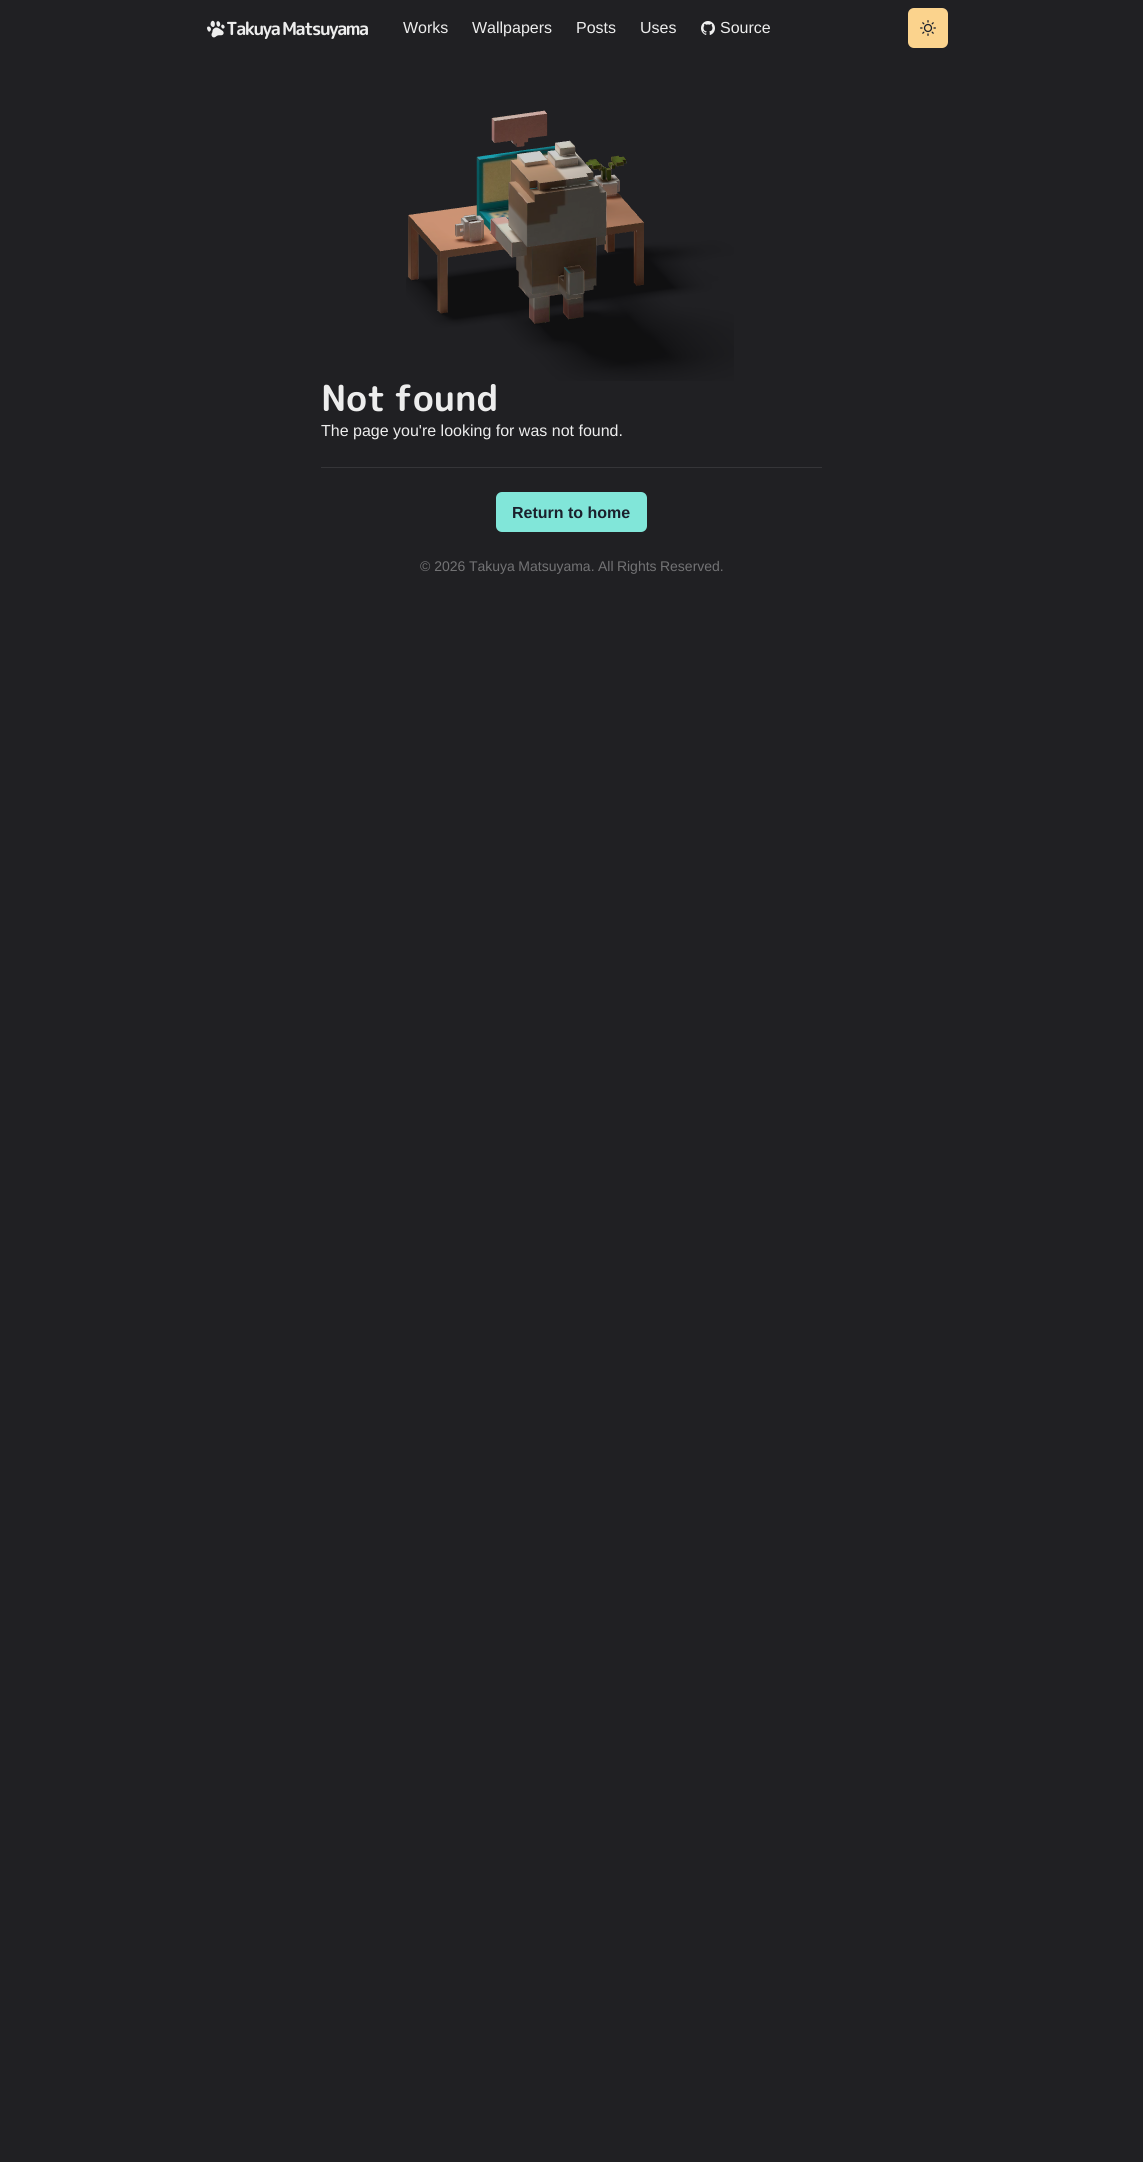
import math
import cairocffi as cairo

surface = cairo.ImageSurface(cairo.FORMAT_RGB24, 1143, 2162)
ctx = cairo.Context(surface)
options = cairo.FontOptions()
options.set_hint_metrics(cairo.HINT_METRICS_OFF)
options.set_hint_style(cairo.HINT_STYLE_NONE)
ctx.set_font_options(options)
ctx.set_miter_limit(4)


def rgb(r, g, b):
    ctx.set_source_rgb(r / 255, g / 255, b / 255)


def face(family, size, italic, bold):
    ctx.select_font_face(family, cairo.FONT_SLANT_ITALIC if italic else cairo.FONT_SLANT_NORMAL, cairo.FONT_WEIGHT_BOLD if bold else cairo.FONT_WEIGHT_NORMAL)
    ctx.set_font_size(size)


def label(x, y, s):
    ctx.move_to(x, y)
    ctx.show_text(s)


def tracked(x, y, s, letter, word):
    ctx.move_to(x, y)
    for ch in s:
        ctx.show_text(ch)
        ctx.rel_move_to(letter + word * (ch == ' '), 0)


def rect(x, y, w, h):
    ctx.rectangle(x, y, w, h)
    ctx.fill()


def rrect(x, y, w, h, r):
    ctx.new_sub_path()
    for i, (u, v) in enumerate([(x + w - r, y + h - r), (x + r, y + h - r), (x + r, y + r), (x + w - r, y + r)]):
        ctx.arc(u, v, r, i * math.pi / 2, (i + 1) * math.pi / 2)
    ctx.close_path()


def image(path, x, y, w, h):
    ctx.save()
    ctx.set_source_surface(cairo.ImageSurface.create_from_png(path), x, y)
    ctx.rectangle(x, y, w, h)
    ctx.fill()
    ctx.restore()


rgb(32, 32, 35)
ctx.paint()
image('image0.png', 207, 20, 18, 18)
face('Rounded Mplus 1c Bold', 18, 0, 1)
rgb(237, 237, 237)
tracked(226, 35, 'Takuya Matsuyama', -1.5, -1)
face('Liberation Sans', 16, 0, 0)
label(403, 33, 'Works')
label(472, 33, 'Wallpapers')
label(576, 33, 'Posts')
label(640, 33, 'Uses')
image('image1.png', 701, 21, 14, 14)
label(720, 33, 'Source')
rgb(251, 211, 141)
rrect(908, 8, 40, 40, 6)
ctx.fill()
image('image2.png', 920, 20, 16, 16)
image('image3.png', 406, 110, 328, 271)
face('Rounded Mplus 1c Bold', 36, 0, 1)
rgb(237, 237, 237)
tracked(321, 411, 'Not found', 0, -2)
face('Liberation Sans', 16, 0, 0)
label(321, 436, 'The page you\'re looking for was not found.')
rgb(53, 53, 56)
rect(321, 467, 501, 1)
rgb(129, 230, 217)
rrect(496, 492, 151, 40, 6)
ctx.fill()
face('Liberation Sans', 16, 0, 1)
rgb(26, 32, 44)
label(512, 518, 'Return to home')
face('Liberation Sans', 14, 0, 0)
rgb(114, 114, 116)
label(420, 571, '© 2026')
tracked(469, 571, 'Takuya Matsuyama. All Rights Reserved.', 0, -0.5)
surface.write_to_png('render.png')
